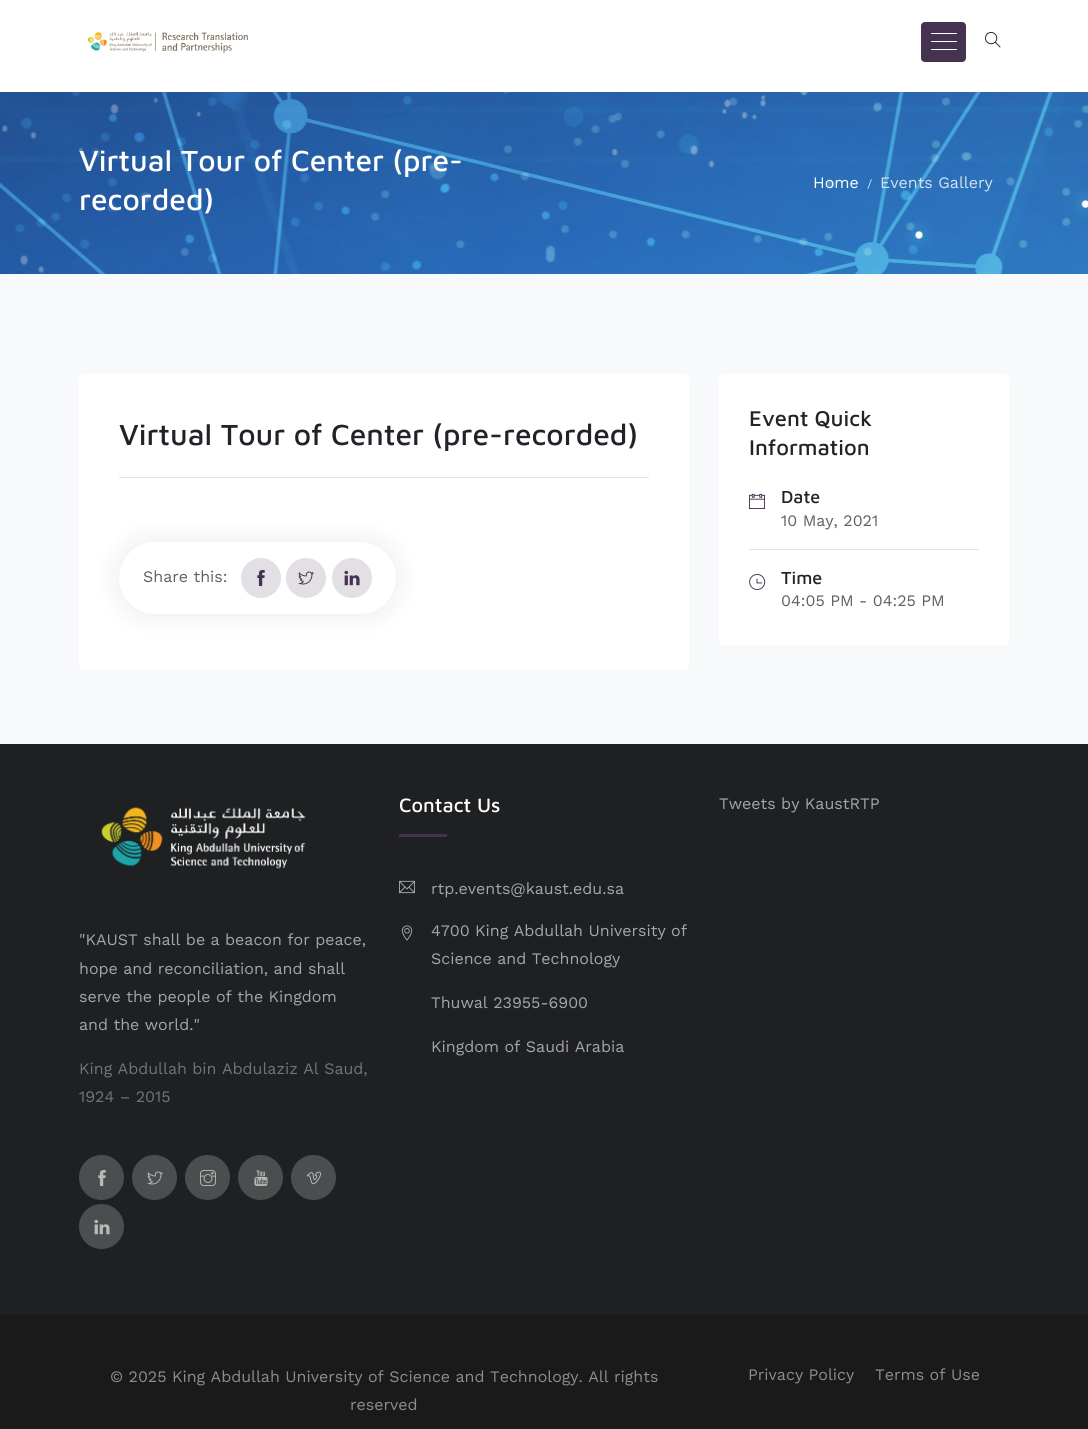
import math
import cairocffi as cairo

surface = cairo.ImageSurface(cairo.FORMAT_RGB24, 1088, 1429)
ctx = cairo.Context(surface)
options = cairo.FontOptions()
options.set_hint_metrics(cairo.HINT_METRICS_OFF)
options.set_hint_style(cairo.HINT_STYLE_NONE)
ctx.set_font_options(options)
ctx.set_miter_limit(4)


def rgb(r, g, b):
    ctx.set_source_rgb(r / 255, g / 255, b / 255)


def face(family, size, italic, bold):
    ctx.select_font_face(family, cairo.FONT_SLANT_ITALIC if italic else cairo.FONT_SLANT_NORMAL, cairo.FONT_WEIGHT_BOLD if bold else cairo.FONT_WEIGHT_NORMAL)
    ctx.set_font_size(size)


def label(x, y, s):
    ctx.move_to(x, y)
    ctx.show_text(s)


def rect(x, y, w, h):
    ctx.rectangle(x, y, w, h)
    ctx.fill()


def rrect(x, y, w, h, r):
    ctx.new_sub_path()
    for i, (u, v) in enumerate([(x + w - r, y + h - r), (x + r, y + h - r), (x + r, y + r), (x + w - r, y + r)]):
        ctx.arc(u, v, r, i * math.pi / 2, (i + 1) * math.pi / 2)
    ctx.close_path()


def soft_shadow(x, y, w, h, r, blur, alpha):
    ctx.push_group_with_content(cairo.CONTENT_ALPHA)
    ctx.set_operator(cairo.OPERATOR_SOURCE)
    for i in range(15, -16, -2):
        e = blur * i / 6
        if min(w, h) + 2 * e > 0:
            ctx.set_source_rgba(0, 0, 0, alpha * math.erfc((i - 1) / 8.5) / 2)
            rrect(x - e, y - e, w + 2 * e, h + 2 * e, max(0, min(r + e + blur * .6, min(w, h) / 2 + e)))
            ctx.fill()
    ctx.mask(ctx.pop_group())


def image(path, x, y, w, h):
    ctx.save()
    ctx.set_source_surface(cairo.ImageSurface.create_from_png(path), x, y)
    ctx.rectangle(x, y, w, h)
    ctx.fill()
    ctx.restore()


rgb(255, 255, 255)
ctx.paint()
image('image0.png', 87, 32, 161, 21)
rgb(69, 50, 80)
rrect(921, 22, 45, 40, 4)
ctx.fill()
rgb(255, 255, 255)
rrect(931, 41, 26, 1, 0.5)
ctx.fill()
rrect(931, 33, 26, 1, 0.5)
ctx.fill()
rrect(931, 49, 26, 1, 0.5)
ctx.fill()
image('image1.png', 985, 32, 16, 16)
image('image2.png', 0, 92, 1088, 182)
face('Maven Pro Medium', 30, 0, 0)
label(79, 171, 'Virtual Tour of Center (pre-')
label(79, 210, 'recorded)')
face('Work Sans', 16, 0, 0)
label(813, 188, 'Home')
face('Work Sans', 12, 0, 0)
rgb(213, 226, 241)
label(867, 188, '/')
face('Work Sans', 16, 0, 0)
label(880, 188, 'Events Gallery')
rgb(248, 249, 250)
rect(0, 274, 1088, 470)
rgb(255, 255, 255)
rrect(79, 374, 610, 296, 4)
ctx.fill()
face('Maven Pro Medium', 30, 0, 0)
rgb(32, 36, 40)
label(119, 445, 'Virtual Tour of Center (pre-recorded)')
rgb(222, 226, 230)
rect(119, 477, 530, 1)
rgb(0, 0, 0)
soft_shadow(119, 542, 277, 72, 36, 15, 0.08)
rgb(255, 255, 255)
rrect(119, 542, 277, 72, 36)
ctx.fill()
face('Work Sans', 16, 0, 0)
rgb(96, 96, 101)
label(143, 582, 'Share this:')
rgb(227, 224, 229)
ctx.new_path()
ctx.arc(261, 578, 20, 0, 2 * math.pi)
ctx.fill()
image('image3.png', 257, 570, 8, 16)
ctx.arc(306, 578, 20, 0, 2 * math.pi)
ctx.fill()
image('image4.png', 298, 571, 16, 14)
ctx.arc(352, 578, 20, 0, 2 * math.pi)
ctx.fill()
image('image5.png', 344, 570, 16, 16)
rgb(255, 255, 255)
rrect(719, 374, 290, 271, 4)
ctx.fill()
face('Maven Pro Medium', 22, 0, 0)
rgb(32, 36, 40)
label(749, 426, 'Event Quick')
label(749, 455, 'Information')
image('image6.png', 749, 493, 16, 16)
face('Maven Pro Medium', 18, 0, 0)
label(781, 503, 'Date')
face('Work Sans', 16, 0, 0)
rgb(96, 96, 101)
label(781, 526, '10 May, 2021')
rgb(222, 226, 230)
rect(749, 549, 230, 1)
image('image7.png', 749, 574, 17, 16)
face('Maven Pro Medium', 18, 0, 0)
rgb(32, 36, 40)
label(781, 584, 'Time')
face('Work Sans', 16, 0, 0)
rgb(96, 96, 101)
label(781, 606, '04:05 PM - 04:25 PM')
rgb(30, 32, 34)
rect(0, 744, 1088, 571)
image('image8.png', 101, 807, 205, 62)
rgb(165, 166, 167)
label(79, 945, '"KAUST shall be a beacon for peace,')
label(79, 974, 'hope and reconciliation, and shall')
label(79, 1002, 'serve the people of the Kingdom')
label(79, 1030, 'and the world."')
rgb(108, 117, 125)
label(79, 1074, 'King Abdullah bin Abdulaziz Al Saud,')
label(79, 1102, '1924 – 2015')
rgb(75, 77, 78)
ctx.new_path()
ctx.arc(101.5, 1177.5, 22.5, 0, 2 * math.pi)
ctx.fill()
image('image9.png', 98, 1170, 8, 16)
ctx.arc(154.5, 1177.5, 22.5, 0, 2 * math.pi)
ctx.fill()
image('image10.png', 147, 1171, 16, 14)
ctx.arc(207.5, 1177.5, 22.5, 0, 2 * math.pi)
ctx.fill()
image('image11.png', 200, 1170, 16, 16)
ctx.arc(260.5, 1177.5, 22.5, 0, 2 * math.pi)
ctx.fill()
image('image12.png', 254, 1170, 14, 16)
ctx.arc(313.5, 1177.5, 22.5, 0, 2 * math.pi)
ctx.fill()
image('image13.png', 306, 1171, 16, 14)
ctx.arc(101.5, 1226.5, 22.5, 0, 2 * math.pi)
ctx.fill()
image('image14.png', 94, 1219, 16, 16)
face('Maven Pro Medium', 20, 0, 0)
rgb(255, 255, 255)
label(399, 812, 'Contact Us')
rgb(69, 50, 80)
rect(399, 834, 48, 3)
image('image15.png', 399, 880, 16, 14)
face('Work Sans', 16, 0, 0)
rgb(165, 166, 167)
label(431, 894, 'rtp.events@kaust.edu.sa')
image('image16.png', 401, 925, 12, 16)
label(431, 936, '4700 King Abdullah University of')
label(431, 964, 'Science and Technology')
label(431, 1008, 'Thuwal 23955-6900')
label(431, 1052, 'Kingdom of Saudi Arabia')
label(719, 809, 'Tweets by KaustRTP')
rgb(26, 26, 26)
rect(0, 1315, 1088, 114)
rgb(141, 141, 141)
label(110, 1382, '© 2025 King Abdullah University of Science and Technology. All rights')
label(350, 1410, 'reserved')
label(748, 1380, 'Privacy Policy')
label(875, 1380, 'Terms of Use')
surface.write_to_png('render.png')
